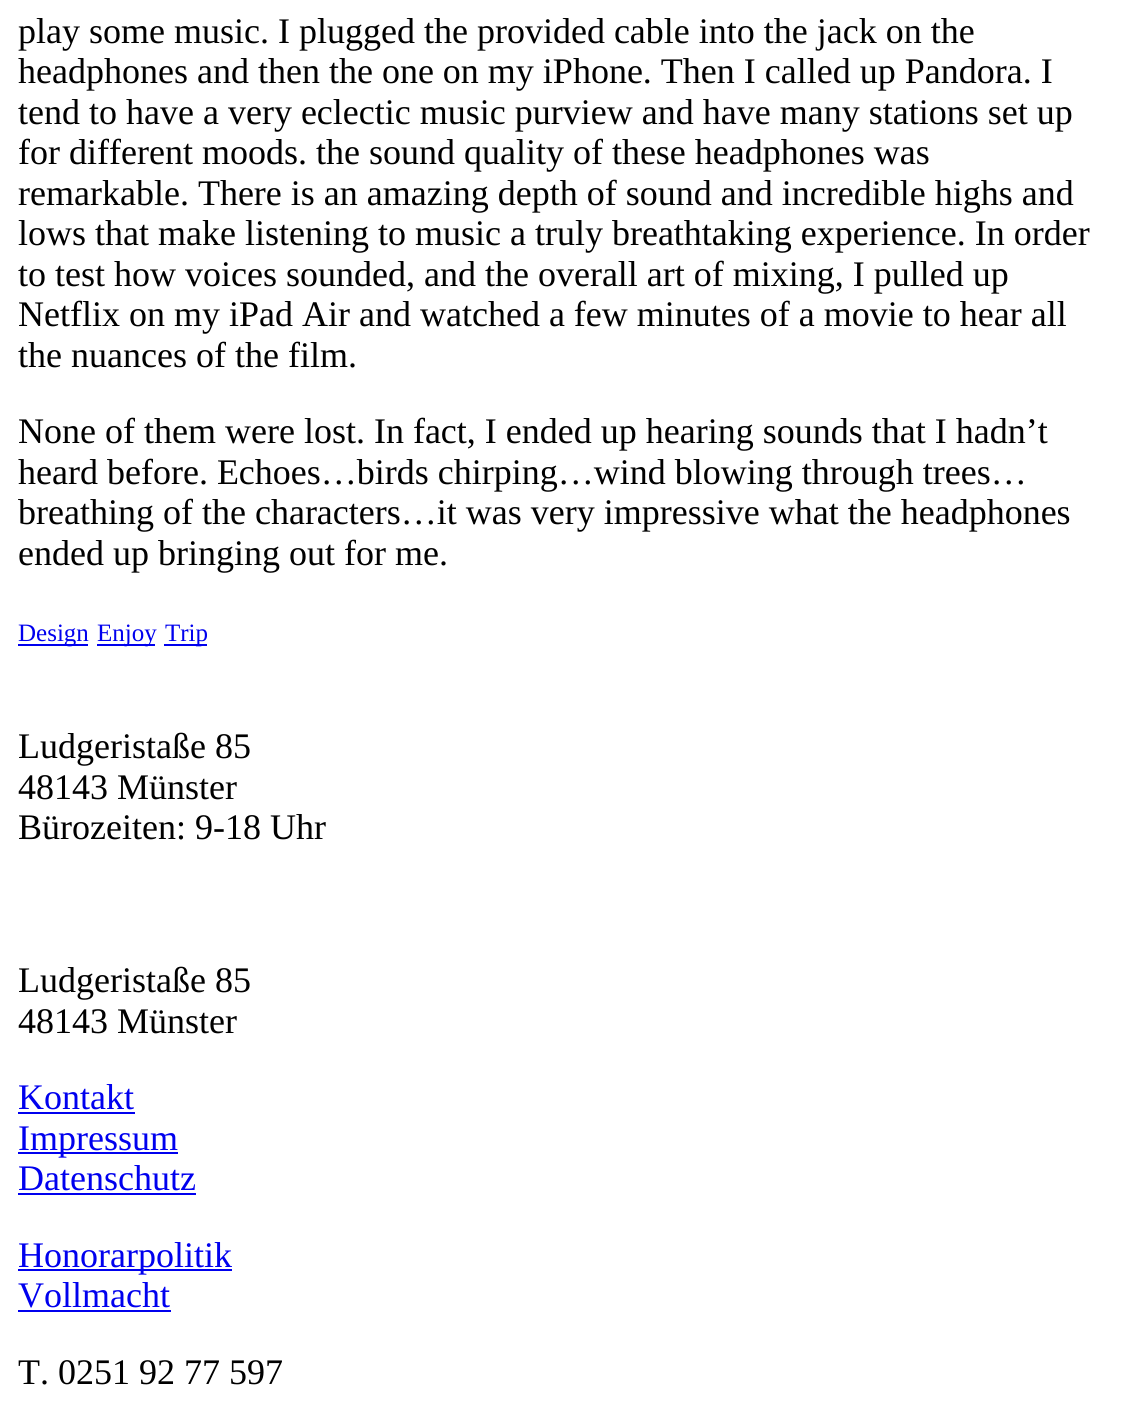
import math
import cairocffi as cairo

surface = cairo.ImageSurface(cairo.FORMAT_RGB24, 1122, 1410)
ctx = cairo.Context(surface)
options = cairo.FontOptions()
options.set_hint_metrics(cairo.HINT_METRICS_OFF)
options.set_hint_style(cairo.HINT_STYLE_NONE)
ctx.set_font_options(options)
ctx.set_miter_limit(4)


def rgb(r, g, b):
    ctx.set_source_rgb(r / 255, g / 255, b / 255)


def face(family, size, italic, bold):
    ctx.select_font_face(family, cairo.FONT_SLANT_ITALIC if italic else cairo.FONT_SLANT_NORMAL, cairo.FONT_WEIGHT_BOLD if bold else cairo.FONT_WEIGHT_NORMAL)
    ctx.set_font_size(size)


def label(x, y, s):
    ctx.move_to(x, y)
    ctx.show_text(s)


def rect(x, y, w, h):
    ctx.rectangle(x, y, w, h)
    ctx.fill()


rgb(255, 255, 255)
ctx.paint()
face('Liberation Serif', 36, 0, 0)
rgb(0, 0, 0)
label(18, 43, 'play some music. I plugged the provided cable into the jack on the')
label(18, 83, 'headphones and then the one on my iPhone. Then I called up Pandora. I')
label(18, 124, 'tend to have a very eclectic music purview and have many stations set up')
label(18, 164, 'for different moods. the sound quality of these headphones was')
label(18, 205, 'remarkable. There is an amazing depth of sound and incredible highs and')
label(18, 245, 'lows that make listening to music a truly breathtaking experience. In order')
label(18, 286, 'to test how voices sounded, and the overall art of mixing, I pulled up')
label(18, 326, 'Netflix on my iPad Air and watched a few minutes of a movie to hear all')
label(18, 367, 'the nuances of the film.')
label(18, 443, 'None of them were lost. In fact, I ended up hearing sounds that I hadn’t')
label(18, 484, 'heard before. Echoes…birds chirping…wind blowing through trees…')
label(18, 524, 'breathing of the characters…it was very impressive what the headphones')
label(18, 565, 'ended up bringing out for me.')
rgb(0, 0, 238)
rect(18, 644, 70, 2)
face('Liberation Serif', 25, 0, 0)
label(18, 641, 'Design')
rect(97, 644, 58, 2)
label(97, 641, 'Enjoy')
rect(164, 644, 43, 2)
label(165, 641, 'Trip')
face('Liberation Serif', 36, 0, 0)
rgb(0, 0, 0)
label(18, 758, 'Ludgeristaße 85')
label(18, 799, '48143 Münster')
label(18, 839, 'Bürozeiten: 9-18 Uhr')
label(18, 992, 'Ludgeristaße 85')
label(18, 1033, '48143 Münster')
rgb(0, 0, 238)
label(18, 1109, 'Kontakt')
rect(18, 1112, 117, 2)
rect(18, 1152, 160, 2)
label(18, 1150, 'Impressum')
label(18, 1190, 'Datenschutz')
rect(18, 1193, 178, 2)
rect(18, 1269, 214, 2)
label(18, 1267, 'Honorarpolitik')
label(18, 1307, 'Vollmacht')
rect(18, 1310, 153, 2)
rgb(0, 0, 0)
label(18, 1384, 'T. 0251 92 77 597')
surface.write_to_png('render.png')
